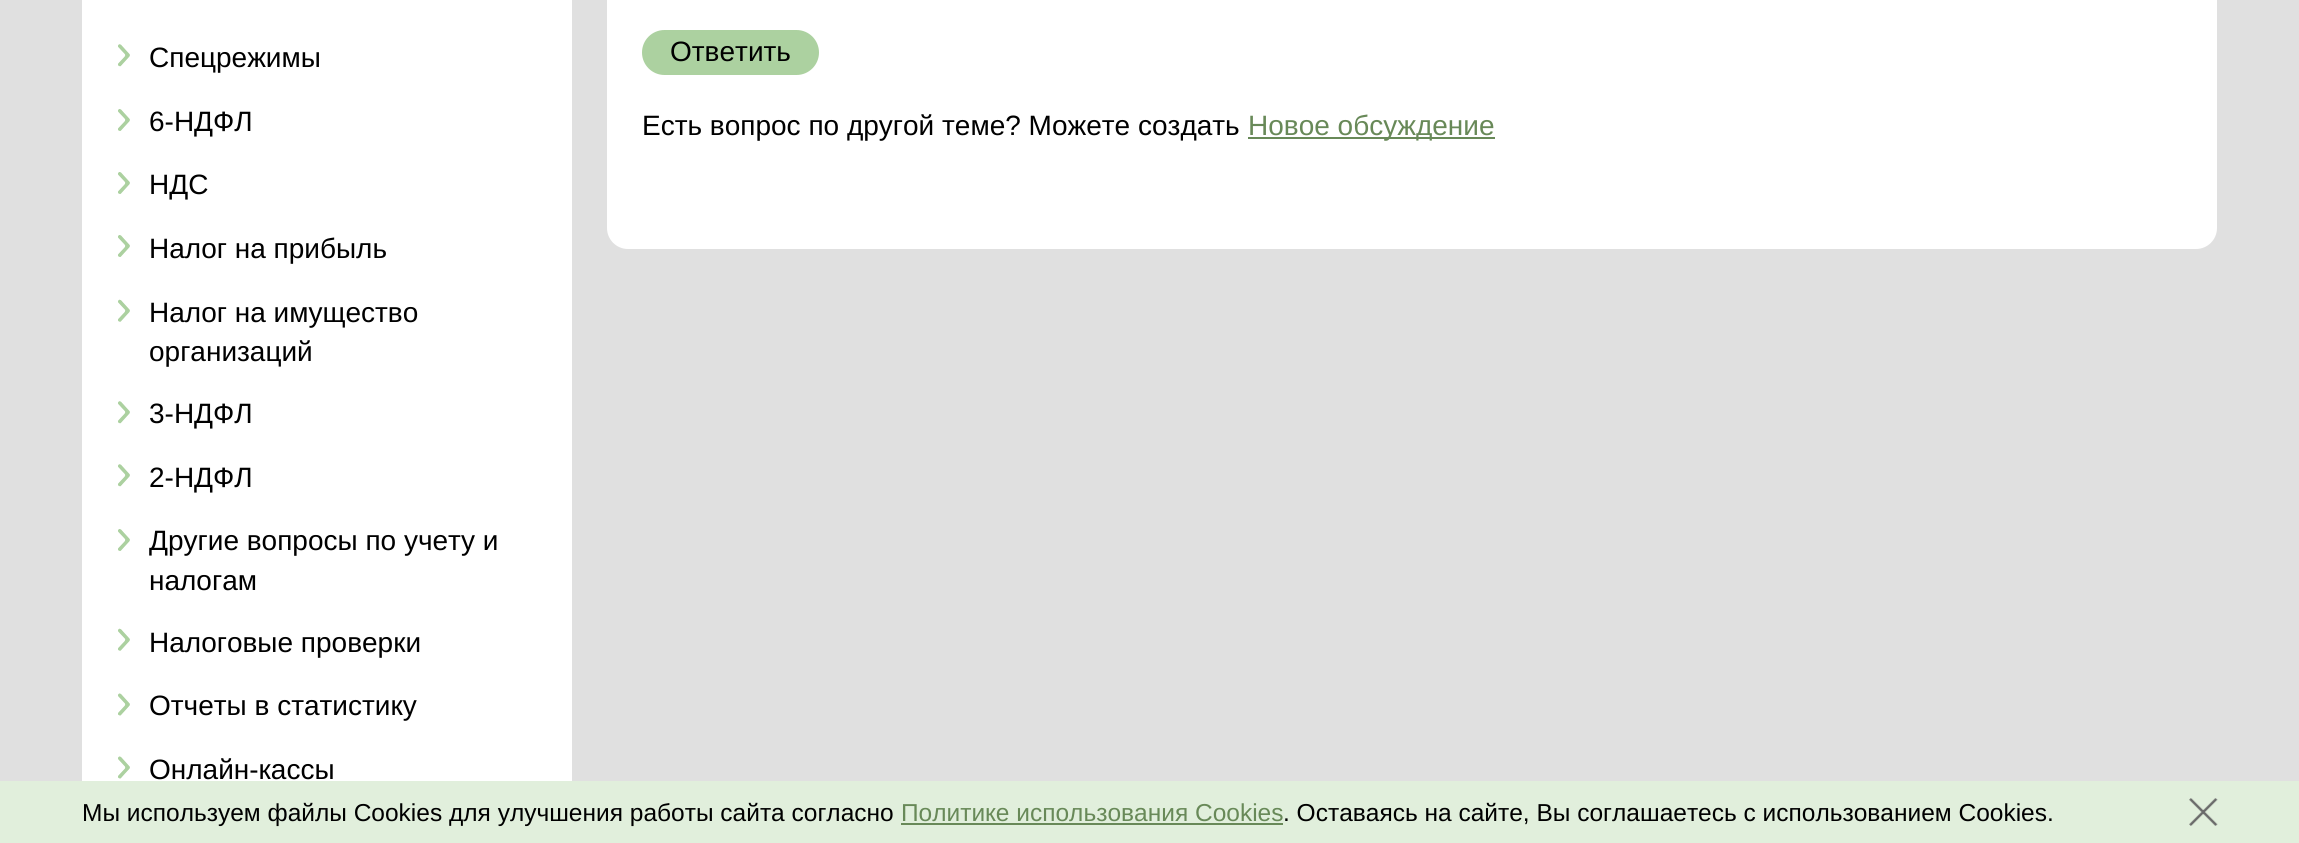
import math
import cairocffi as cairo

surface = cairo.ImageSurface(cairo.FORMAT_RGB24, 2299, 843)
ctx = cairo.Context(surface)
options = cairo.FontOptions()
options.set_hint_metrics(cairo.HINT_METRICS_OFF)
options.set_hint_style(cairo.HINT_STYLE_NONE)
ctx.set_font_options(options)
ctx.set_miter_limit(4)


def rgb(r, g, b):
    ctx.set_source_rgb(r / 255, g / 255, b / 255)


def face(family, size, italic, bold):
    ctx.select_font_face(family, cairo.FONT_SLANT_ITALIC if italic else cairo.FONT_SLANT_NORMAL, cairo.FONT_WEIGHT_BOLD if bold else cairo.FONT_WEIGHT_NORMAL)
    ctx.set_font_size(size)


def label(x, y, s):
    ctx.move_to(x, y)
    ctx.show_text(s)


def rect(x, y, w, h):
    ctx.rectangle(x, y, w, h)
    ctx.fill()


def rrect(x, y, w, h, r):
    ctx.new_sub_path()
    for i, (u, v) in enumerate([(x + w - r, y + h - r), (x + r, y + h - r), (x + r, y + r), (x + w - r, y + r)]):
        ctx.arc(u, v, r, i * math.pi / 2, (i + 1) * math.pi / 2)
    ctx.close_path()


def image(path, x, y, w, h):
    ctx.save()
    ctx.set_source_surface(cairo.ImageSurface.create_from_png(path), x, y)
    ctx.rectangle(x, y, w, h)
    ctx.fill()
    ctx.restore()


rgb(224, 224, 224)
ctx.paint()
rgb(255, 255, 255)
rect(82, 0, 490, 781)
image('image0.png', 118, 44, 12, 23)
face('Liberation Sans', 28, 0, 0)
rgb(0, 0, 0)
label(149, 67, 'Спецрежимы')
image('image1.png', 118, 109, 12, 22)
label(149, 131, '6-НДФЛ')
image('image1.png', 118, 172, 12, 22)
label(149, 194, 'НДС')
image('image1.png', 118, 235, 12, 22)
label(149, 258, 'Налог на прибыль')
image('image2.png', 118, 299, 12, 23)
label(149, 322, 'Налог на имущество')
label(149, 361, 'организаций')
image('image0.png', 118, 401, 12, 23)
label(149, 423, '3-НДФЛ')
image('image0.png', 118, 464, 12, 23)
label(149, 487, '2-НДФЛ')
image('image1.png', 118, 529, 12, 22)
label(149, 550, 'Другие вопросы по учету и')
label(149, 590, 'налогам')
image('image2.png', 118, 628, 12, 23)
label(149, 652, 'Налоговые проверки')
image('image3.png', 118, 693, 12, 23)
label(149, 715, 'Отчеты в статистику')
image('image4.png', 118, 756, 12, 23)
label(149, 779, 'Онлайн-кассы')
rgb(255, 255, 255)
rrect(607, -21, 1610, 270, 21)
ctx.fill()
rgb(172, 209, 160)
rrect(643, 31, 175, 43, 21.5)
ctx.fill_preserve()
ctx.stroke()
rgb(0, 0, 0)
label(670, 61, 'Ответить')
label(642, 135, 'Есть вопрос по другой теме? Можете создать')
rgb(104, 137, 88)
rect(1248, 137, 247, 2)
label(1248, 135, 'Новое обсуждение')
rgb(225, 239, 220)
rect(0, 781, 2299, 62)
face('Liberation Sans', 24.5, 0, 0)
rgb(0, 0, 0)
label(82, 821, 'Мы используем файлы Cookies для улучшения работы сайта согласно')
rgb(104, 137, 88)
label(901, 821, 'Политике использования Cookies')
rect(901, 823, 382, 2)
rgb(0, 0, 0)
label(1283, 821, '. Оставаясь на сайте, Вы соглашаетесь с использованием Cookies.')
image('image5.png', 2189, 798, 29, 28)
surface.write_to_png('render.png')
